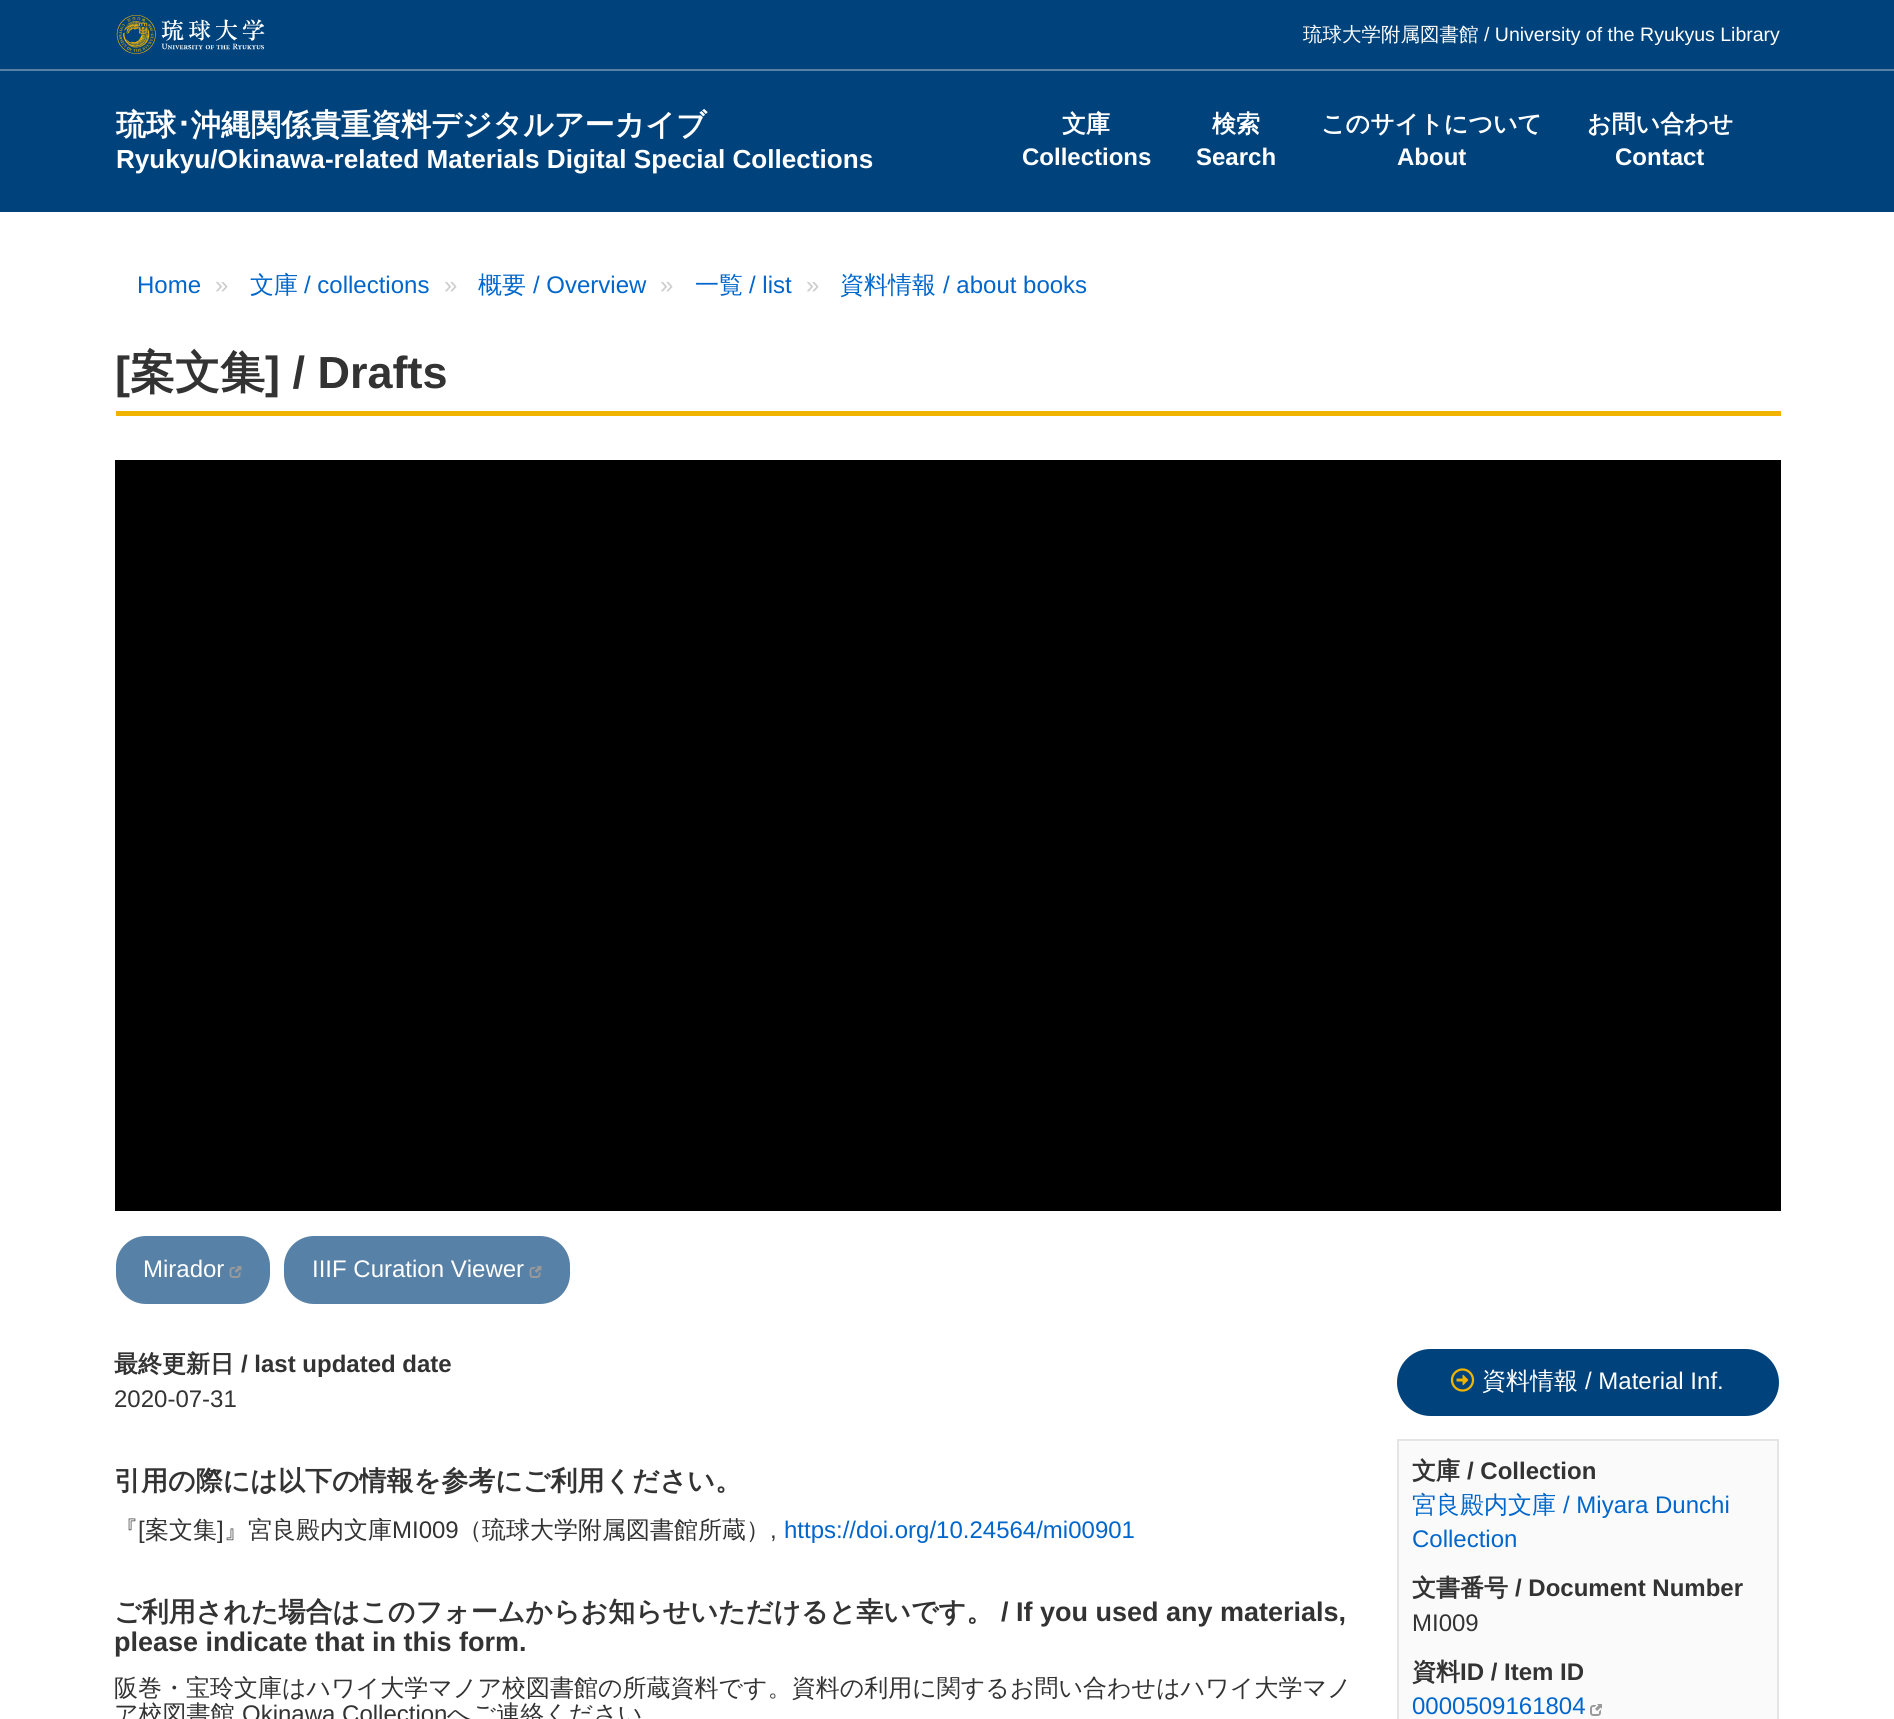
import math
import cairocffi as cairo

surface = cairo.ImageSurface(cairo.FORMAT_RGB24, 1894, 1719)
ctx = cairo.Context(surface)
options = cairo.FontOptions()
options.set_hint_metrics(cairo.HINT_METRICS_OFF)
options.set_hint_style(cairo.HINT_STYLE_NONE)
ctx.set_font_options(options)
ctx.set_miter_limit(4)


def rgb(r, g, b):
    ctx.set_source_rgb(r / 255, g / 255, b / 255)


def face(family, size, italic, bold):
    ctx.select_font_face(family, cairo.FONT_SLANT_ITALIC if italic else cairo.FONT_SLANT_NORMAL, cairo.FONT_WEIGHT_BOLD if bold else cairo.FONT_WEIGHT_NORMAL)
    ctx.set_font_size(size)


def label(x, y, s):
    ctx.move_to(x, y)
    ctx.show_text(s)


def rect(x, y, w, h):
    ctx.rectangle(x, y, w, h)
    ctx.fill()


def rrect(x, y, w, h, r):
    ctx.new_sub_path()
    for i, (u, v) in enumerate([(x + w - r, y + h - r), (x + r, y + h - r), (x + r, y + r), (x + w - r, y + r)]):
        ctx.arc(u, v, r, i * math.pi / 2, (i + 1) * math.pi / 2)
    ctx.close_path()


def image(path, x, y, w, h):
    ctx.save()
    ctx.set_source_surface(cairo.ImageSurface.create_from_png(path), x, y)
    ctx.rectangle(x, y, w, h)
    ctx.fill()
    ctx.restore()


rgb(255, 255, 255)
ctx.paint()
rgb(0, 67, 124)
rect(0, 0, 1894, 212)
rgb(87, 129, 166)
rect(0, 69, 1894, 2)
image('image0.png', 116, 15, 149, 39)
face('WenQuanYi Zen Hei Medium', 19.5, 0, 0)
rgb(255, 255, 255)
label(1303, 41, '琉球大学附属図書館')
face('Liberation Sans', 19.5, 0, 0)
label(1484, 41, '/ University of the Ryukyus Library')
face('WenQuanYi Zen Hei', 30, 0, 1)
label(116, 135, '琉球')
face('IPAPGothic', 30, 0, 1)
label(176, 135, '･')
face('WenQuanYi Zen Hei', 30, 0, 1)
label(191, 135, '沖縄関係貴重資料デジタルアーカイブ')
face('Liberation Sans', 26.1, 0, 1)
label(116, 168, 'Ryukyu/Okinawa-related Materials Digital Special Collections')
face('WenQuanYi Zen Hei', 24, 0, 1)
label(1062, 132, '文庫')
face('Liberation Sans', 24, 0, 1)
label(1022, 165, 'Collections')
face('WenQuanYi Zen Hei', 24, 0, 1)
label(1212, 132, '検索')
face('Liberation Sans', 24, 0, 1)
label(1196, 165, 'Search')
face('WenQuanYi Zen Hei', 24, 0, 1)
label(1321, 132, 'このサイトについて')
face('Liberation Sans', 24, 0, 1)
label(1397, 165, 'About')
face('WenQuanYi Zen Hei', 24, 0, 1)
label(1587, 132, 'お問い合わせ')
face('Liberation Sans', 24, 0, 1)
label(1615, 165, 'Contact')
face('Liberation Sans', 24, 0, 0)
rgb(0, 102, 204)
label(137, 293, 'Home')
rgb(204, 204, 204)
label(215, 293, '»')
face('WenQuanYi Zen Hei Medium', 24, 0, 0)
rgb(0, 102, 204)
label(250, 293, '文庫')
face('Liberation Sans', 24, 0, 0)
label(304, 293, '/ collections')
rgb(204, 204, 204)
label(444, 293, '»')
face('WenQuanYi Zen Hei Medium', 24, 0, 0)
rgb(0, 102, 204)
label(478, 293, '概要')
face('Liberation Sans', 24, 0, 0)
label(533, 293, '/ Overview')
rgb(204, 204, 204)
label(660, 293, '»')
face('WenQuanYi Zen Hei Medium', 24, 0, 0)
rgb(0, 102, 204)
label(695, 293, '一覧')
face('Liberation Sans', 24, 0, 0)
label(749, 293, '/ list')
rgb(204, 204, 204)
label(806, 293, '»')
face('WenQuanYi Zen Hei Medium', 24, 0, 0)
rgb(0, 102, 204)
label(840, 293, '資料情報')
face('Liberation Sans', 24, 0, 0)
label(943, 293, '/ about books')
rgb(240, 179, 0)
rect(116, 411, 1665, 5)
face('Liberation Sans', 45, 0, 1)
rgb(51, 51, 51)
label(115, 388, '[')
face('WenQuanYi Zen Hei', 45, 0, 1)
label(130, 388, '案文集')
face('Liberation Sans', 45, 0, 1)
label(265, 388, '] / Drafts')
rgb(0, 0, 0)
rect(115, 460, 1666, 751)
rgb(87, 129, 166)
rrect(117, 1237, 152, 66, 29)
ctx.fill_preserve()
ctx.stroke()
face('Liberation Sans', 24, 0, 0)
rgb(255, 255, 255)
label(143, 1277, 'Mirador')
image('image1.png', 229, 1266, 13, 12)
rgb(87, 129, 166)
rrect(285, 1237, 284, 66, 29)
ctx.fill_preserve()
ctx.stroke()
rgb(255, 255, 255)
label(312, 1277, 'IIIF Curation Viewer')
image('image1.png', 529, 1266, 13, 12)
face('WenQuanYi Zen Hei', 24, 0, 1)
rgb(51, 51, 51)
label(114, 1372, '最終更新日')
face('Liberation Sans', 24, 0, 1)
label(241, 1372, '/ last updated date')
face('Liberation Sans', 24, 0, 0)
label(114, 1407, '2020-07-31')
face('WenQuanYi Zen Hei', 27, 0, 1)
label(114, 1490, '引用の際には以下の情報を参考にご利用ください。')
face('WenQuanYi Zen Hei Medium', 24, 0, 0)
label(114, 1538, '『')
face('Liberation Sans', 24, 0, 0)
label(138, 1538, '[')
face('WenQuanYi Zen Hei Medium', 24, 0, 0)
label(145, 1538, '案文集')
face('Liberation Sans', 24, 0, 0)
label(217, 1538, ']')
face('WenQuanYi Zen Hei Medium', 24, 0, 0)
label(224, 1538, '』宮良殿内文庫')
face('Liberation Sans', 24, 0, 0)
label(392, 1538, 'MI009')
face('WenQuanYi Zen Hei Medium', 24, 0, 0)
label(458, 1538, '（琉球大学附属図書館所蔵）')
face('Liberation Sans', 24, 0, 0)
label(770, 1538, ',')
rgb(0, 102, 204)
label(784, 1538, 'https://doi.org/10.24564/mi00901')
face('WenQuanYi Zen Hei', 27, 0, 1)
rgb(51, 51, 51)
label(114, 1621, 'ご利用された場合はこのフォームからお知らせいただけると幸いです。')
face('Liberation Sans', 27, 0, 1)
label(1001, 1621, '/ If you used any materials,')
label(114, 1651, 'please indicate that in this form.')
face('WenQuanYi Zen Hei Medium', 24, 0, 0)
label(114, 1696, '阪巻・宝玲文庫はハワイ大学マノア校図書館の所蔵資料です。資料の利用に関するお問い合わせはハワイ大学マノ')
label(114, 1722, 'ア校図書館')
face('Liberation Sans', 24, 0, 0)
label(242, 1722, 'Okinawa Collection')
face('WenQuanYi Zen Hei Medium', 24, 0, 0)
label(447, 1722, 'へご連絡ください')
rgb(0, 67, 124)
rrect(1398, 1350, 380, 65, 32.5)
ctx.fill_preserve()
ctx.stroke()
image('image2.png', 1450, 1368, 25, 24)
rgb(255, 255, 255)
label(1482, 1389, '資料情報')
face('Liberation Sans', 24, 0, 0)
label(1585, 1389, '/ Material Inf.')
rgb(250, 250, 250)
ctx.rectangle(1398, 1440, 380, 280)
ctx.fill_preserve()
rgb(230, 229, 229)
ctx.stroke()
face('WenQuanYi Zen Hei', 24, 0, 1)
rgb(51, 51, 51)
label(1412, 1479, '文庫')
face('Liberation Sans', 24, 0, 1)
label(1467, 1479, '/ Collection')
face('WenQuanYi Zen Hei Medium', 24, 0, 0)
rgb(0, 102, 204)
label(1412, 1513, '宮良殿内文庫')
face('Liberation Sans', 24, 0, 0)
label(1563, 1513, '/ Miyara Dunchi')
label(1412, 1547, 'Collection')
face('WenQuanYi Zen Hei', 24, 0, 1)
rgb(51, 51, 51)
label(1412, 1596, '文書番号')
face('Liberation Sans', 24, 0, 1)
label(1515, 1596, '/ Document Number')
face('Liberation Sans', 24, 0, 0)
label(1412, 1631, 'MI009')
face('WenQuanYi Zen Hei', 24, 0, 1)
label(1412, 1680, '資料')
face('Liberation Sans', 24, 0, 1)
label(1460, 1680, 'ID / Item ID')
face('Liberation Sans', 24, 0, 0)
rgb(0, 102, 204)
label(1412, 1714, '0000509161804')
image('image3.png', 1590, 1704, 12, 12)
surface.write_to_png('render.png')
